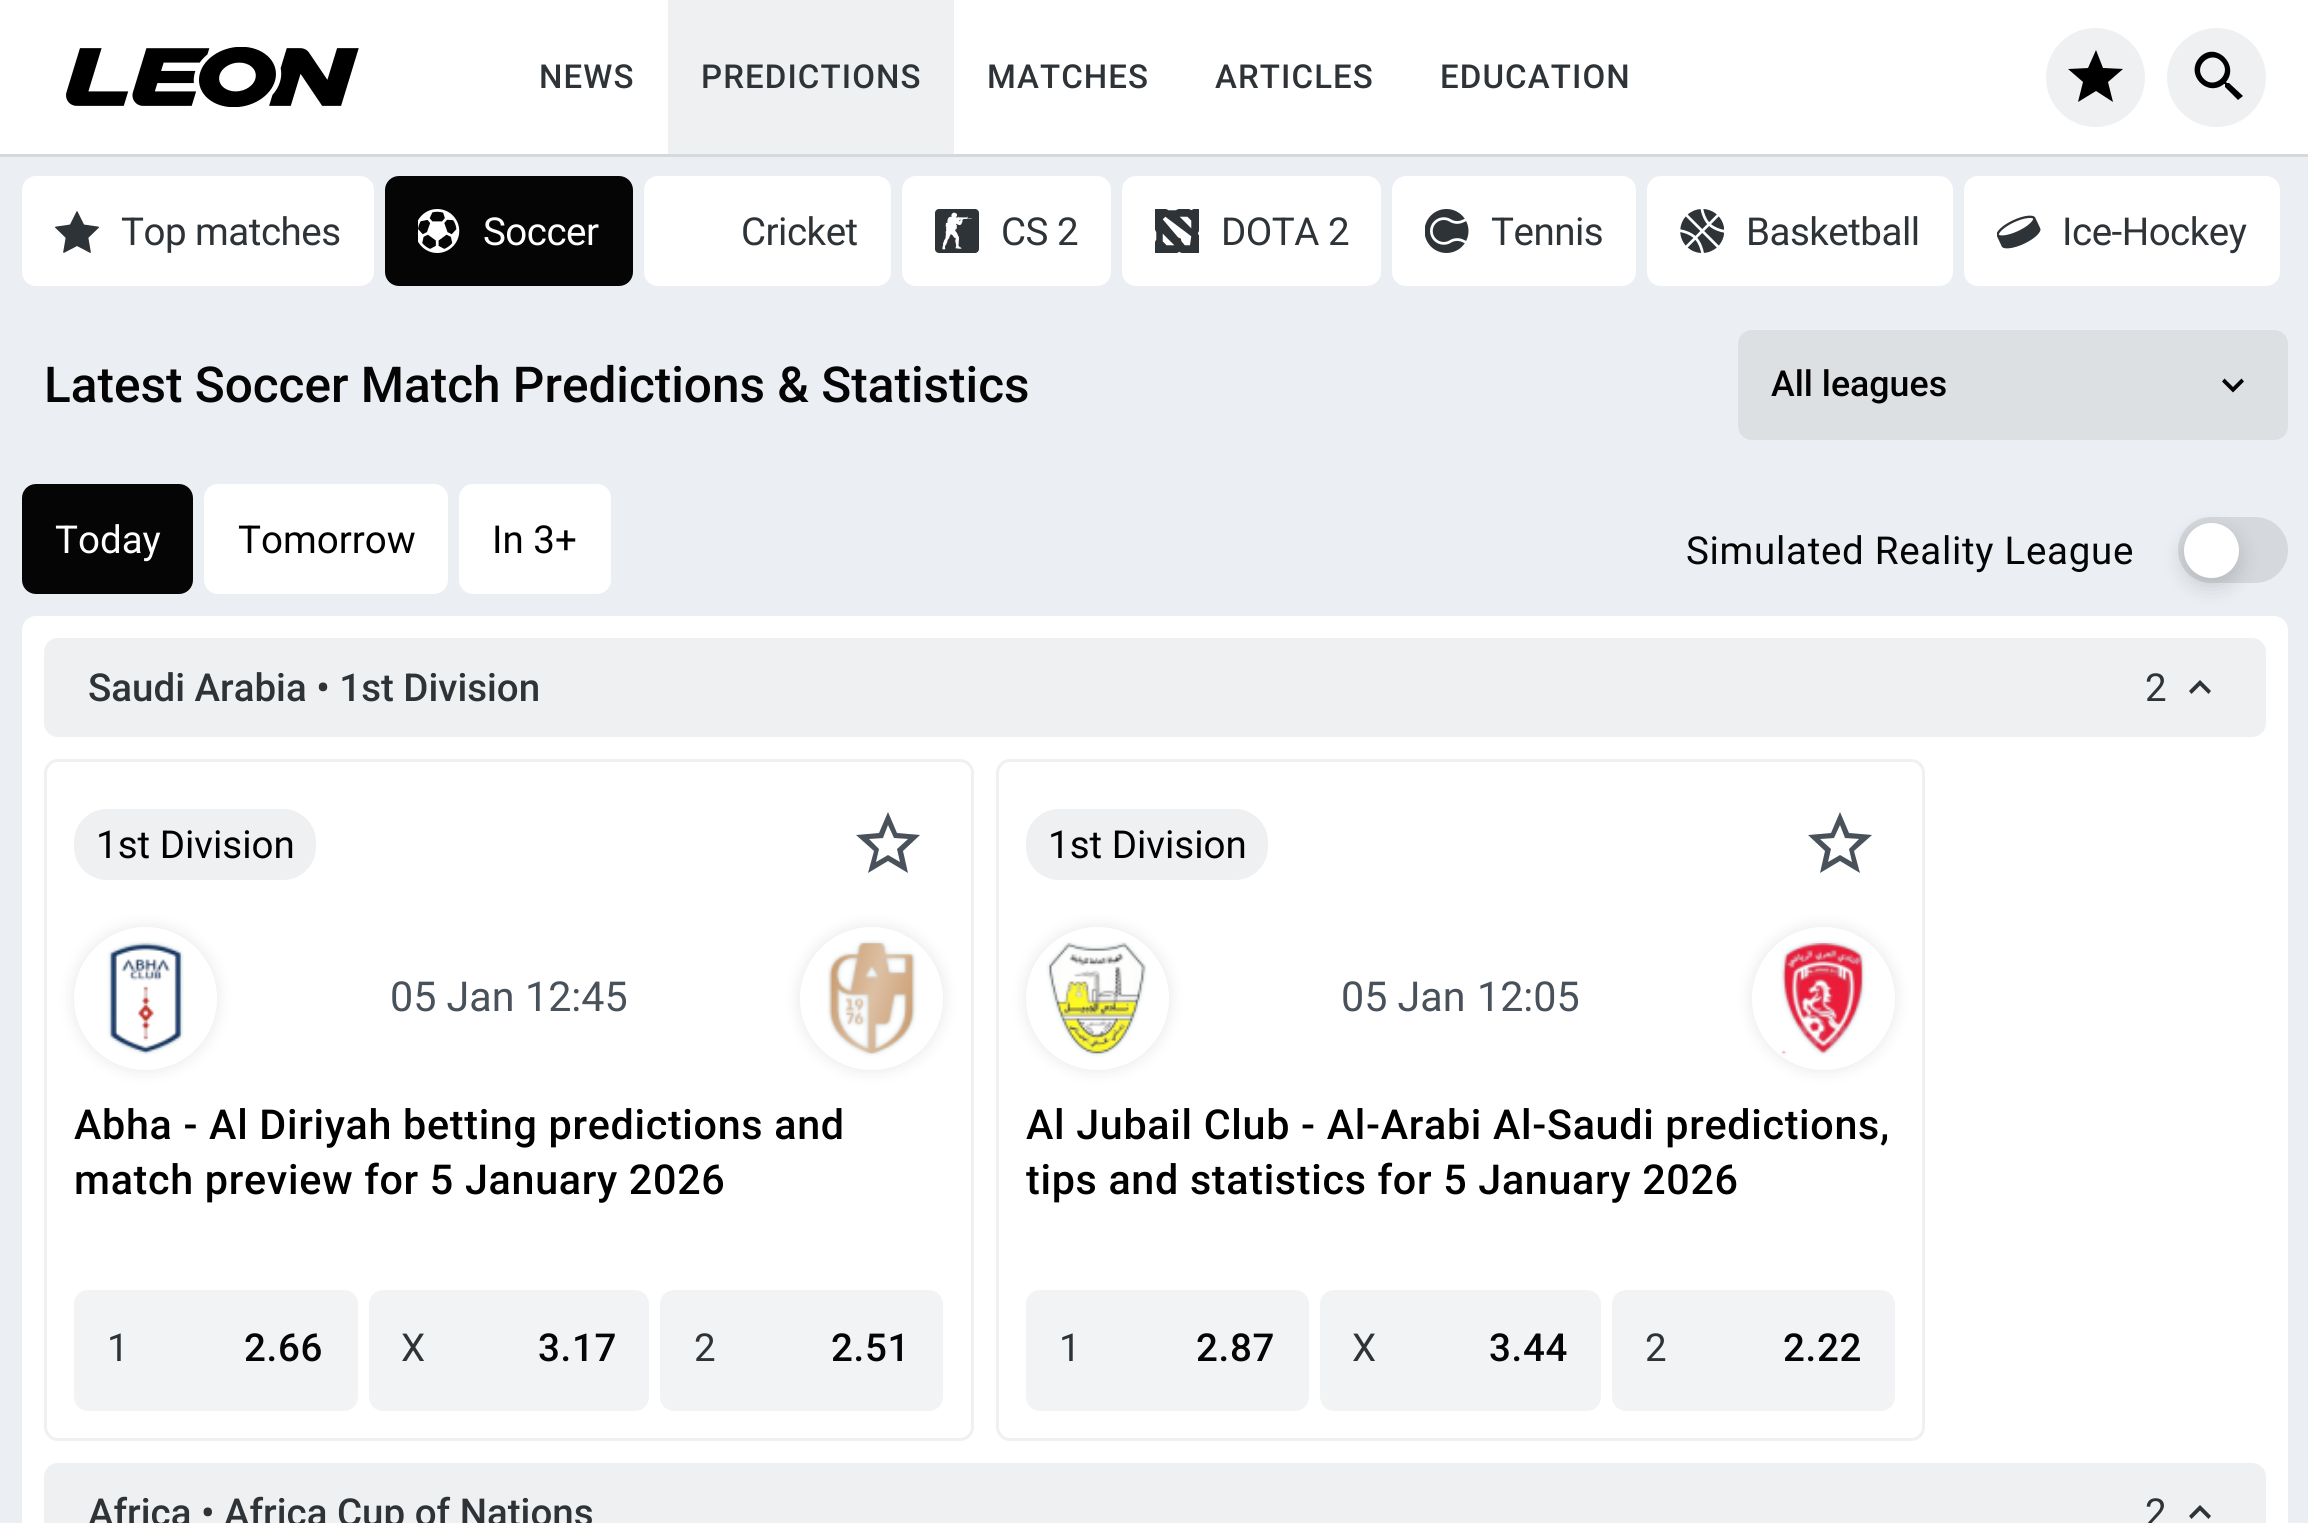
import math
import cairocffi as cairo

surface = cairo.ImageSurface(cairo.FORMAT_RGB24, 2308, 1523)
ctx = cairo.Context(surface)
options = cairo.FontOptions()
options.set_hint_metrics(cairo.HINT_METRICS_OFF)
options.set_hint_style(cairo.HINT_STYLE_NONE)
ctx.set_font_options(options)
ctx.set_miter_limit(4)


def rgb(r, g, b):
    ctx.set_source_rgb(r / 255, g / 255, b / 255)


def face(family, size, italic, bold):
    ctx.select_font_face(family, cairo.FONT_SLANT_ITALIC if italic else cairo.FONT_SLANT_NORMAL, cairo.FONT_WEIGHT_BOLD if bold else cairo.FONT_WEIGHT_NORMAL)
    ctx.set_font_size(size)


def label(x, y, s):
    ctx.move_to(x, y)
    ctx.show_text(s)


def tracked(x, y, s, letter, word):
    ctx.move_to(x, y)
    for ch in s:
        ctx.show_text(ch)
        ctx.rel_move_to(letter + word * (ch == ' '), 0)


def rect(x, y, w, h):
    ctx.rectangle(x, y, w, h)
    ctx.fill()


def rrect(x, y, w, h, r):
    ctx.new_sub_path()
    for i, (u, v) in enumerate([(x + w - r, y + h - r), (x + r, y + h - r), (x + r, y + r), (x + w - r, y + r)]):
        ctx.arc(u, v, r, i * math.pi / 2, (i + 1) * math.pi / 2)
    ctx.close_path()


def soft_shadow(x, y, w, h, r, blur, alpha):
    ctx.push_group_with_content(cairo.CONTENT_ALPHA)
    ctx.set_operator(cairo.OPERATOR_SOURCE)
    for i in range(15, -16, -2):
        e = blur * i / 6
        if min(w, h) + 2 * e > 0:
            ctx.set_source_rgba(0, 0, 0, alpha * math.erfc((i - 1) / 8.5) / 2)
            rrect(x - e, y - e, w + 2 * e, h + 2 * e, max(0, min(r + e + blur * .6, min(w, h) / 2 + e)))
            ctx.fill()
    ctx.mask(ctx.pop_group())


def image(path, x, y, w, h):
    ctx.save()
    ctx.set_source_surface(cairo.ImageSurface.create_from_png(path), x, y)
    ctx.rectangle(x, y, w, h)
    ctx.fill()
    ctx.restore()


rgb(235, 238, 242)
ctx.paint()
rgb(213, 217, 221)
rect(0, 154, 2308, 3)
rgb(255, 255, 255)
rect(0, 0, 2308, 154)
image('image0.png', 66, 47, 293, 60)
face('Roboto Medium', 33, 0, 0)
rgb(46, 51, 56)
tracked(539, 88, 'NEWS', 1.1, 0)
rgb(238, 240, 241)
rect(668, 0, 286, 154)
rgb(46, 51, 56)
tracked(701, 88, 'PREDICTIONS', 1.1, 0)
tracked(987, 88, 'MATCHES', 1.1, 0)
tracked(1215, 88, 'ARTICLES', 1.1, 0)
tracked(1440, 88, 'EDUCATION', 1.1, 0)
rgb(238, 240, 241)
ctx.new_path()
ctx.arc(2095.5, 77.5, 49.5, 0, 2 * math.pi)
ctx.fill()
rgb(0, 0, 0)
ctx.new_path()
ctx.move_to(2096, 91)
ctx.line_to(2078, 102)
ctx.line_to(2083, 82)
ctx.line_to(2068, 69)
ctx.line_to(2088, 68)
ctx.line_to(2096, 50)
ctx.line_to(2103, 68)
ctx.line_to(2123, 69)
ctx.line_to(2108, 82)
ctx.line_to(2113, 102)
ctx.close_path()
ctx.fill()
rgb(238, 240, 241)
ctx.arc(2216.5, 77.5, 49.5, 0, 2 * math.pi)
ctx.fill()
rgb(0, 0, 0)
ctx.new_path()
ctx.move_to(2204, 79)
ctx.curve_to(2215, 90, 2233, 73, 2221, 61)
ctx.curve_to(2210, 50, 2192, 67, 2204, 79)
ctx.close_path()
ctx.move_to(2229, 83)
ctx.line_to(2243, 96)
ctx.line_to(2238, 100)
ctx.line_to(2225, 87)
ctx.line_to(2225, 84)
ctx.line_to(2224, 84)
ctx.curve_to(2207, 98, 2184, 74, 2200, 57)
ctx.curve_to(2216, 41, 2240, 65, 2226, 82)
ctx.line_to(2227, 83)
ctx.close_path()
ctx.fill()
rgb(255, 255, 255)
rrect(22, 176, 352, 110, 14)
ctx.fill()
image('image1.png', 55, 211, 44, 42)
face('Roboto', 38.5, 0, 0)
rgb(46, 51, 56)
tracked(121, 245, 'Top matches', -0.5, 0)
rgb(5, 5, 6)
rrect(385, 176, 248, 110, 14)
ctx.fill()
image('image2.png', 418, 209, 42, 44)
rgb(255, 255, 255)
tracked(483, 245, 'Soccer', -0.5, 0)
rrect(644, 176, 247, 110, 14)
ctx.fill()
rgb(46, 51, 56)
tracked(741, 245, 'Cricket', -0.5, 0)
rgb(255, 255, 255)
rrect(902, 176, 209, 110, 14)
ctx.fill()
image('image3.png', 935, 209, 44, 44)
rgb(46, 51, 56)
tracked(1001, 245, 'CS 2', -0.5, 0)
rgb(255, 255, 255)
rrect(1122, 176, 259, 110, 14)
ctx.fill()
image('image4.png', 1155, 209, 44, 44)
rgb(46, 51, 56)
tracked(1221, 245, 'DOTA 2', -0.5, 0)
rgb(255, 255, 255)
rrect(1392, 176, 244, 110, 14)
ctx.fill()
image('image5.png', 1425, 209, 44, 44)
rgb(46, 51, 56)
tracked(1491, 245, 'Tennis', -0.5, 0)
rgb(255, 255, 255)
rrect(1647, 176, 306, 110, 14)
ctx.fill()
image('image6.png', 1680, 209, 44, 44)
rgb(46, 51, 56)
tracked(1746, 245, 'Basketball', -0.5, 0)
rgb(255, 255, 255)
rrect(1964, 176, 316, 110, 14)
ctx.fill()
image('image7.png', 1997, 215, 44, 34)
rgb(46, 51, 56)
tracked(2062, 245, 'Ice-Hockey', -0.5, 0)
face('Roboto Medium', 49.5, 0, 0)
rgb(5, 5, 6)
label(44, 402, 'Latest Soccer Match Predictions & Statistics')
rgb(221, 224, 227)
rrect(1738, 330, 550, 110, 14)
ctx.fill()
face('Roboto Medium', 35.75, 0, 0)
rgb(0, 0, 0)
label(1771, 396, 'All leagues')
rgb(5, 5, 6)
ctx.new_path()
ctx.move_to(2241.5, 378.5)
ctx.line_to(2244, 381.5)
ctx.line_to(2233, 392.5)
ctx.line_to(2222, 381.5)
ctx.line_to(2224.5, 378.5)
ctx.line_to(2233, 387)
ctx.close_path()
ctx.fill()
rrect(22, 484, 171, 110, 14)
ctx.fill()
face('Roboto', 38.5, 0, 0)
rgb(255, 255, 255)
label(55, 553, 'Today')
rrect(204, 484, 244, 110, 14)
ctx.fill()
rgb(0, 0, 0)
label(238, 553, 'Tomorrow')
rgb(255, 255, 255)
rrect(459, 484, 152, 110, 14)
ctx.fill()
rgb(0, 0, 0)
label(492, 553, 'In 3+')
rgb(5, 5, 6)
tracked(1686, 564, 'Simulated Reality League', 0.7, 0)
rgb(213, 217, 221)
rrect(2178, 517, 110, 66, 33)
ctx.fill()
rgb(255, 255, 255)
rrect(22, 616, 2266, 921, 14)
ctx.fill()
rgb(0, 0, 0)
soft_shadow(2184, 531, 55, 55, 27.5, 11, 0.15)
rgb(255, 255, 255)
ctx.arc(2211.5, 550.5, 27.5, 0, 2 * math.pi)
ctx.fill()
rgb(238, 240, 241)
rrect(44, 638, 2222, 99, 14)
ctx.fill()
face('Roboto Medium', 38.5, 0, 0)
rgb(46, 51, 56)
label(88, 701, 'Saudi Arabia • 1st Division')
face('Roboto', 38.5, 0, 0)
label(2145, 701, '2')
ctx.new_path()
ctx.move_to(2200, 680)
ctx.line_to(2211, 691)
ctx.line_to(2208.5, 694)
ctx.line_to(2200, 685.5)
ctx.line_to(2191.5, 694)
ctx.line_to(2189, 691)
ctx.close_path()
ctx.fill()
rrect(45.5, 760.5, 927, 679, 12.5)
rgb(238, 240, 241)
ctx.set_line_width(3)
ctx.stroke()
rrect(74, 809, 242, 71, 33)
ctx.fill()
rgb(0, 0, 0)
label(96, 858, '1st Division')
rgb(73, 82, 90)
ctx.new_path()
ctx.move_to(920, 835)
ctx.line_to(897, 833)
ctx.line_to(888, 812)
ctx.line_to(879, 833)
ctx.line_to(856, 835)
ctx.line_to(874, 851)
ctx.line_to(868, 873)
ctx.line_to(888, 861)
ctx.line_to(908, 873)
ctx.line_to(903, 851)
ctx.close_path()
ctx.move_to(888, 855)
ctx.line_to(876, 862)
ctx.line_to(879, 849)
ctx.line_to(869, 839)
ctx.line_to(883, 838)
ctx.line_to(888, 825)
ctx.line_to(894, 838)
ctx.line_to(908, 839)
ctx.line_to(897, 849)
ctx.line_to(900, 862)
ctx.close_path()
ctx.fill()
rgb(0, 0, 0)
soft_shadow(74, 927, 143, 143, 71.5, 8, 0.1)
rgb(255, 255, 255)
ctx.arc(145.5, 998.5, 71.5, 0, 2 * math.pi)
ctx.fill()
image('image8.png', 107, 941, 77, 114)
face('Roboto', 41.25, 0, 0)
rgb(73, 82, 90)
label(390, 1011, '05 Jan')
label(525, 1011, '12:45')
rgb(0, 0, 0)
soft_shadow(800, 927, 143, 143, 71.5, 8, 0.1)
rgb(255, 255, 255)
ctx.arc(871.5, 998.5, 71.5, 0, 2 * math.pi)
ctx.fill()
image('image9.png', 827, 940, 90, 117)
face('Roboto Medium', 41.25, 0, 0)
rgb(0, 0, 0)
tracked(74, 1139, 'Abha - Al Diriyah betting predictions and', 0.7, 0)
tracked(74, 1194, 'match preview for 5 January 2026', 0.7, 0)
rgb(241, 243, 244)
rrect(74, 1290, 284, 121, 14)
ctx.fill()
face('Roboto', 38.5, 0, 0)
rgb(46, 51, 56)
tracked(107, 1361, '1', 0.7, 0)
face('Roboto Medium', 38.5, 0, 0)
rgb(5, 5, 6)
tracked(244, 1361, '2.66', 0.7, 0)
rgb(241, 243, 244)
rrect(369, 1290, 280, 121, 14)
ctx.fill()
face('Roboto', 38.5, 0, 0)
rgb(46, 51, 56)
tracked(401, 1361, 'X', 0.7, 0)
face('Roboto Medium', 38.5, 0, 0)
rgb(5, 5, 6)
tracked(538, 1361, '3.17', 0.7, 0)
rgb(241, 243, 244)
rrect(660, 1290, 283, 121, 14)
ctx.fill()
face('Roboto', 38.5, 0, 0)
rgb(46, 51, 56)
tracked(694, 1361, '2', 0.7, 0)
face('Roboto Medium', 38.5, 0, 0)
rgb(5, 5, 6)
tracked(831, 1361, '2.51', 0.7, 0)
rrect(997.5, 760.5, 926, 679, 12.5)
rgb(238, 240, 241)
ctx.stroke()
rrect(1026, 809, 242, 71, 33)
ctx.fill()
face('Roboto', 38.5, 0, 0)
rgb(0, 0, 0)
label(1048, 858, '1st Division')
rgb(73, 82, 90)
ctx.new_path()
ctx.move_to(1872, 835)
ctx.line_to(1849, 833)
ctx.line_to(1840, 812)
ctx.line_to(1831, 833)
ctx.line_to(1808, 835)
ctx.line_to(1825, 851)
ctx.line_to(1820, 873)
ctx.line_to(1840, 861)
ctx.line_to(1860, 873)
ctx.line_to(1854, 851)
ctx.close_path()
ctx.move_to(1840, 855)
ctx.line_to(1828, 862)
ctx.line_to(1831, 849)
ctx.line_to(1820, 839)
ctx.line_to(1834, 838)
ctx.line_to(1840, 825)
ctx.line_to(1845, 838)
ctx.line_to(1859, 839)
ctx.line_to(1849, 849)
ctx.line_to(1852, 862)
ctx.close_path()
ctx.fill()
rgb(0, 0, 0)
soft_shadow(1026, 927, 143, 143, 71.5, 8, 0.1)
rgb(255, 255, 255)
ctx.arc(1097.5, 998.5, 71.5, 0, 2 * math.pi)
ctx.fill()
image('image10.png', 1046, 941, 101, 116)
face('Roboto', 41.25, 0, 0)
rgb(73, 82, 90)
label(1341, 1011, '05 Jan')
label(1477, 1011, '12:05')
rgb(0, 0, 0)
soft_shadow(1752, 927, 143, 143, 71.5, 8, 0.1)
rgb(255, 255, 255)
ctx.arc(1823.5, 998.5, 71.5, 0, 2 * math.pi)
ctx.fill()
image('image11.png', 1780, 940, 86, 116)
face('Roboto Medium', 41.25, 0, 0)
rgb(0, 0, 0)
tracked(1026, 1139, 'Al Jubail Club - Al-Arabi Al-Saudi predictions,', 0.7, 0)
tracked(1026, 1194, 'tips and statistics for 5 January 2026', 0.7, 0)
rgb(241, 243, 244)
rrect(1026, 1290, 283, 121, 14)
ctx.fill()
face('Roboto', 38.5, 0, 0)
rgb(46, 51, 56)
tracked(1059, 1361, '1', 0.7, 0)
face('Roboto Medium', 38.5, 0, 0)
rgb(5, 5, 6)
tracked(1196, 1361, '2.87', 0.7, 0)
rgb(241, 243, 244)
rrect(1320, 1290, 281, 121, 14)
ctx.fill()
face('Roboto', 38.5, 0, 0)
rgb(46, 51, 56)
tracked(1352, 1361, 'X', 0.7, 0)
face('Roboto Medium', 38.5, 0, 0)
rgb(5, 5, 6)
tracked(1489, 1361, '3.44', 0.7, 0)
rgb(241, 243, 244)
rrect(1612, 1290, 283, 121, 14)
ctx.fill()
face('Roboto', 38.5, 0, 0)
rgb(46, 51, 56)
tracked(1645, 1361, '2', 0.7, 0)
face('Roboto Medium', 38.5, 0, 0)
rgb(5, 5, 6)
tracked(1783, 1361, '2.22', 0.7, 0)
rgb(238, 240, 241)
rrect(44, 1463, 2222, 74, 14)
ctx.fill()
rgb(46, 51, 56)
label(88, 1526, 'Africa • Africa Cup of Nations')
face('Roboto', 38.5, 0, 0)
label(2145, 1526, '2')
ctx.new_path()
ctx.move_to(2200, 1505)
ctx.line_to(2211, 1516)
ctx.line_to(2208.5, 1519)
ctx.line_to(2200, 1510.5)
ctx.line_to(2191.5, 1519)
ctx.line_to(2189, 1516)
ctx.close_path()
ctx.fill()
surface.write_to_png('render.png')
